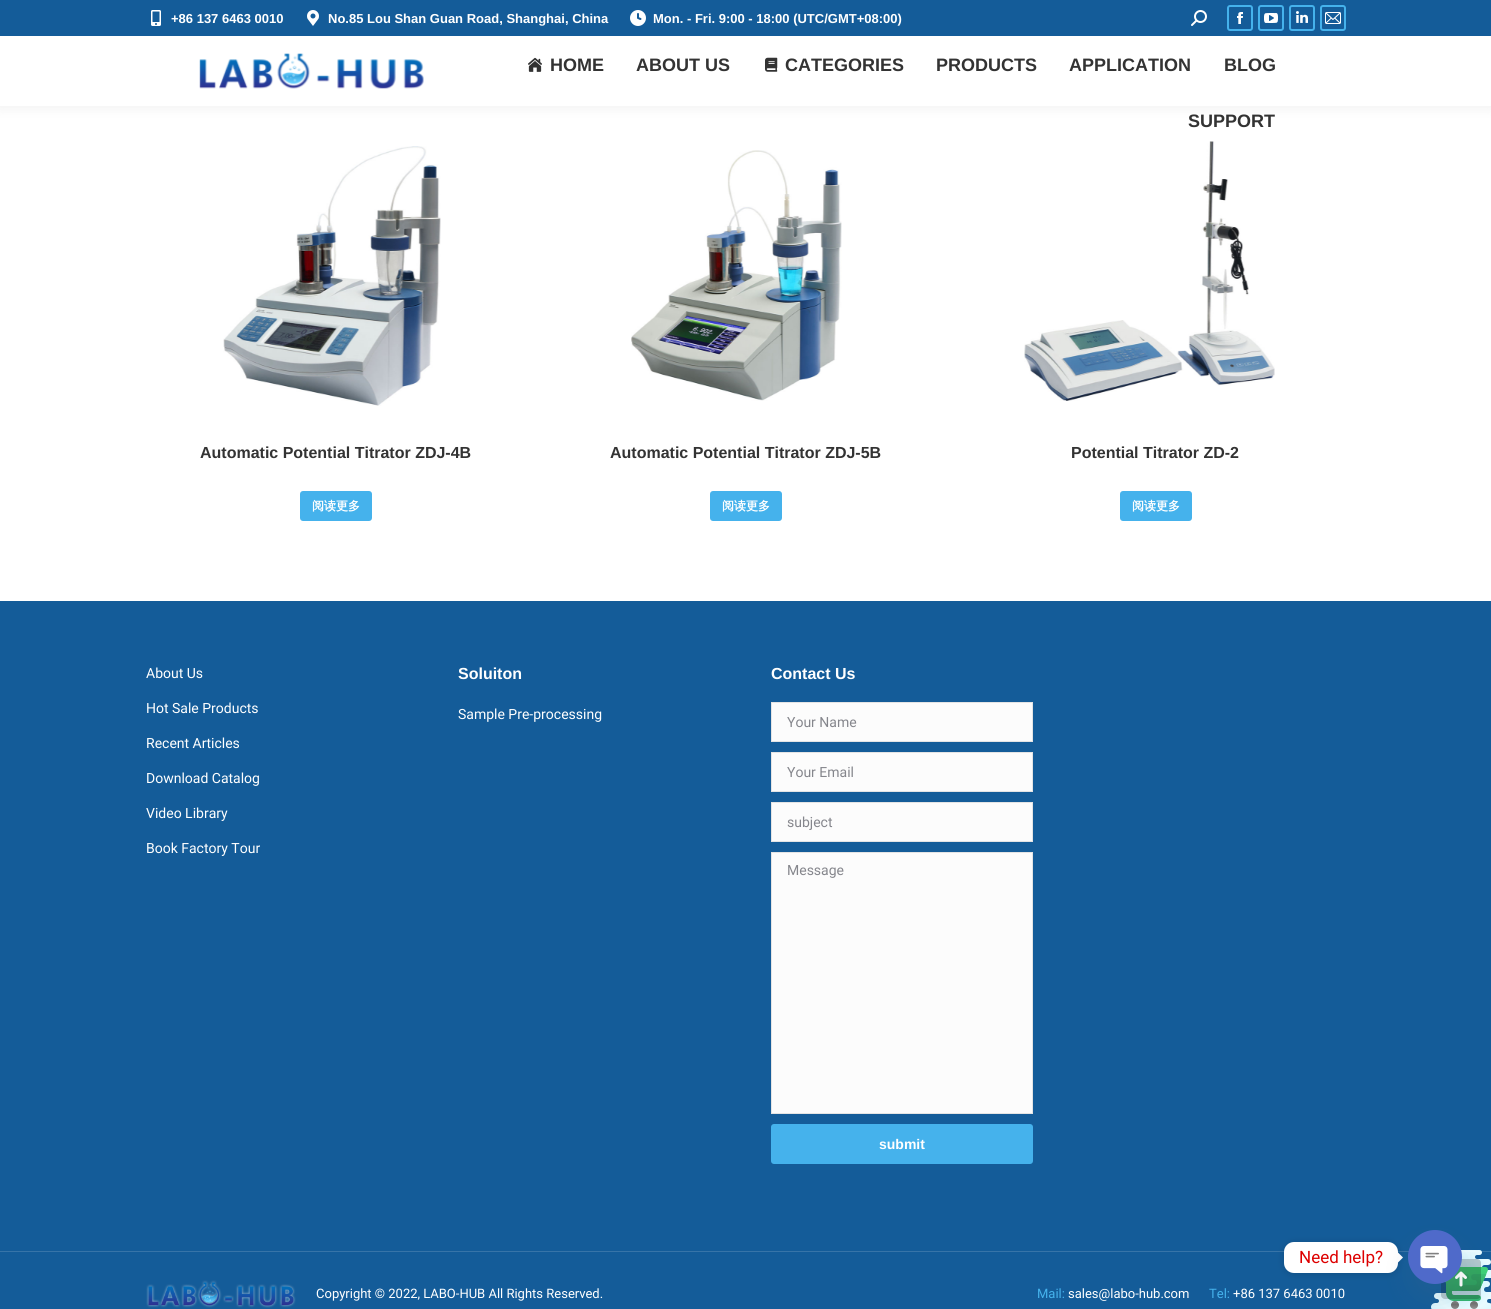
import math
import cairocffi as cairo

surface = cairo.ImageSurface(cairo.FORMAT_RGB24, 1491, 1309)
ctx = cairo.Context(surface)
options = cairo.FontOptions()
options.set_hint_metrics(cairo.HINT_METRICS_OFF)
options.set_hint_style(cairo.HINT_STYLE_NONE)
ctx.set_font_options(options)
ctx.set_miter_limit(4)


def rgb(r, g, b):
    ctx.set_source_rgb(r / 255, g / 255, b / 255)


def face(family, size, italic, bold):
    ctx.select_font_face(family, cairo.FONT_SLANT_ITALIC if italic else cairo.FONT_SLANT_NORMAL, cairo.FONT_WEIGHT_BOLD if bold else cairo.FONT_WEIGHT_NORMAL)
    ctx.set_font_size(size)


def label(x, y, s):
    ctx.move_to(x, y)
    ctx.show_text(s)


def rect(x, y, w, h):
    ctx.rectangle(x, y, w, h)
    ctx.fill()


def rrect(x, y, w, h, r):
    ctx.new_sub_path()
    for i, (u, v) in enumerate([(x + w - r, y + h - r), (x + r, y + h - r), (x + r, y + r), (x + w - r, y + r)]):
        ctx.arc(u, v, r, i * math.pi / 2, (i + 1) * math.pi / 2)
    ctx.close_path()


def soft_shadow(x, y, w, h, r, blur, alpha):
    ctx.push_group_with_content(cairo.CONTENT_ALPHA)
    ctx.set_operator(cairo.OPERATOR_SOURCE)
    for i in range(15, -16, -2):
        e = blur * i / 6
        if min(w, h) + 2 * e > 0:
            ctx.set_source_rgba(0, 0, 0, alpha * math.erfc((i - 1) / 8.5) / 2)
            rrect(x - e, y - e, w + 2 * e, h + 2 * e, max(0, min(r + e + blur * .6, min(w, h) / 2 + e)))
            ctx.fill()
    ctx.mask(ctx.pop_group())


def image(path, x, y, w, h):
    ctx.save()
    ctx.set_source_surface(cairo.ImageSurface.create_from_png(path), x, y)
    ctx.rectangle(x, y, w, h)
    ctx.fill()
    ctx.restore()


rgb(255, 255, 255)
ctx.paint()
rgb(0, 0, 0)
soft_shadow(-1, -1, 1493, 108, 0, 7.5, 0.07)
rgb(255, 255, 255)
rect(0, 36, 1491, 70)
rgb(20, 92, 153)
rect(0, 0, 1491, 36)
image('image0.png', 151, 10, 10, 16)
face('Liberation Sans', 13, 0, 1)
rgb(255, 255, 255)
label(171, 23, '+86 137 6463 0010')
image('image1.png', 307, 10, 12, 16)
label(328, 23, 'No.85 Lou Shan Guan Road, Shanghai, China')
image('image2.png', 630, 10, 16, 16)
label(653, 23, 'Mon. - Fri. 9:00 - 18:00 (UTC/GMT+08:00)')
image('image3.png', 1191, 10, 16, 16)
rrect(1228, 6, 24, 24, 2)
rgb(69, 178, 236)
ctx.stroke()
image('image4.png', 1237, 12, 6, 12)
rrect(1259, 6, 24, 24, 2)
ctx.stroke()
image('image5.png', 1264, 13, 14, 10)
rrect(1290, 6, 24, 24, 2)
ctx.stroke()
image('image6.png', 1296, 11, 12, 12)
rrect(1321, 6, 24, 24, 2)
ctx.stroke()
image('image7.png', 1325, 12, 16, 12)
image('image8.png', 199, 53, 225, 36)
image('image9.png', 528, 57, 14, 15)
face('Liberation Sans', 18, 0, 1)
rgb(51, 51, 51)
label(550, 71, 'HOME')
label(636, 71, 'ABOUT US')
image('image10.png', 765, 57, 13, 15)
label(785, 71, 'CATEGORIES')
label(936, 71, 'PRODUCTS')
label(1069, 71, 'APPLICATION')
label(1224, 71, 'BLOG')
label(1188, 127, 'SUPPORT')
image('image11.png', 223, 146, 218, 260)
face('Liberation Sans', 16, 0, 1)
label(200, 458, 'Automatic Potential Titrator ZDJ-4B')
rgb(69, 178, 236)
rrect(300, 491, 72, 30, 3)
ctx.fill()
face('WenQuanYi Zen Hei', 12, 0, 1)
rgb(255, 255, 255)
label(312, 510, '阅读更多')
image('image12.png', 631, 150, 211, 251)
face('Liberation Sans', 16, 0, 1)
rgb(51, 51, 51)
label(610, 458, 'Automatic Potential Titrator ZDJ-5B')
rgb(69, 178, 236)
rrect(710, 491, 72, 30, 3)
ctx.fill()
face('WenQuanYi Zen Hei', 12, 0, 1)
rgb(255, 255, 255)
label(722, 510, '阅读更多')
image('image13.png', 1024, 141, 251, 260)
face('Liberation Sans', 16, 0, 1)
rgb(51, 51, 51)
label(1071, 458, 'Potential Titrator ZD-2')
rgb(69, 178, 236)
rrect(1120, 491, 72, 30, 3)
ctx.fill()
face('WenQuanYi Zen Hei', 12, 0, 1)
rgb(255, 255, 255)
label(1132, 510, '阅读更多')
rgb(20, 92, 153)
rect(0, 601, 1491, 708)
face('Roboto', 14, 0, 0)
rgb(255, 255, 255)
label(146, 678, 'About Us')
label(146, 713, 'Hot Sale Products')
label(146, 748, 'Recent Articles')
label(146, 783, 'Download Catalog')
label(146, 818, 'Video Library')
label(146, 853, 'Book Factory Tour')
face('Liberation Sans', 16, 0, 1)
label(458, 679, 'Soluiton')
face('Roboto', 14, 0, 0)
label(458, 719, 'Sample Pre-processing')
face('Liberation Sans', 16, 0, 1)
label(771, 679, 'Contact Us')
rgb(252, 252, 252)
ctx.rectangle(771.5, 702.5, 261, 39)
ctx.fill_preserve()
rgb(228, 228, 228)
ctx.set_line_width(1)
ctx.stroke()
face('Roboto', 14, 0, 0)
rgb(133, 134, 140)
label(787, 727, 'Your Name')
rgb(252, 252, 252)
ctx.rectangle(771.5, 752.5, 261, 39)
ctx.fill_preserve()
rgb(228, 228, 228)
ctx.stroke()
rgb(133, 134, 140)
label(787, 777, 'Your Email')
rgb(252, 252, 252)
ctx.rectangle(771.5, 802.5, 261, 39)
ctx.fill_preserve()
rgb(228, 228, 228)
ctx.stroke()
rgb(133, 134, 140)
label(787, 827, 'subject')
rgb(252, 252, 252)
ctx.rectangle(771.5, 852.5, 261, 261)
ctx.fill_preserve()
rgb(228, 228, 228)
ctx.stroke()
rgb(133, 134, 140)
label(787, 875, 'Message')
rgb(69, 178, 236)
rrect(771, 1124, 262, 40, 3)
ctx.fill()
face('Liberation Sans', 14, 0, 1)
rgb(255, 255, 255)
label(879, 1149, 'submit')
image('image17.png', 1431, 1250, 60, 59)
ctx.set_source_rgba(1, 1, 1, 0.15)
rect(0, 1251, 1491, 1)
image('image14.png', 146, 1280, 150, 28)
face('Roboto', 13, 0, 0)
rgb(255, 255, 255)
label(316, 1298, 'Copyright © 2022, LABO-HUB All Rights Reserved.')
rgb(69, 178, 236)
label(1037, 1298, 'Mail:')
rgb(255, 255, 255)
label(1068, 1298, 'sales@labo-hub.com')
rgb(69, 178, 236)
label(1209, 1298, 'Tel:')
rgb(255, 255, 255)
label(1233, 1298, '+86 137 6463 0010')
ctx.set_source_rgba(0, 0, 0, 0.2)
rrect(1441, 1259, 40, 40, 4)
ctx.fill()
image('image15.png', 1455, 1271, 12, 16)
rgb(0, 0, 0)
soft_shadow(1284, 1243, 114, 31, 10, 4, 0.15)
rgb(255, 255, 255)
rrect(1284, 1242, 114, 31, 10)
ctx.fill()
face('Roboto', 17, 0, 0)
rgb(221, 0, 0)
label(1299, 1263, 'Need help?')
rgb(255, 255, 255)
ctx.new_path()
ctx.move_to(1398, 1262.5)
ctx.line_to(1398, 1252.5)
ctx.line_to(1403, 1257.5)
ctx.close_path()
ctx.fill()
rgb(73, 104, 126)
soft_shadow(1408, 1246, 54, 54, 27, 12, 0.16)
image('image16.png', 1408, 1230, 54, 54)
surface.write_to_png('render.png')
